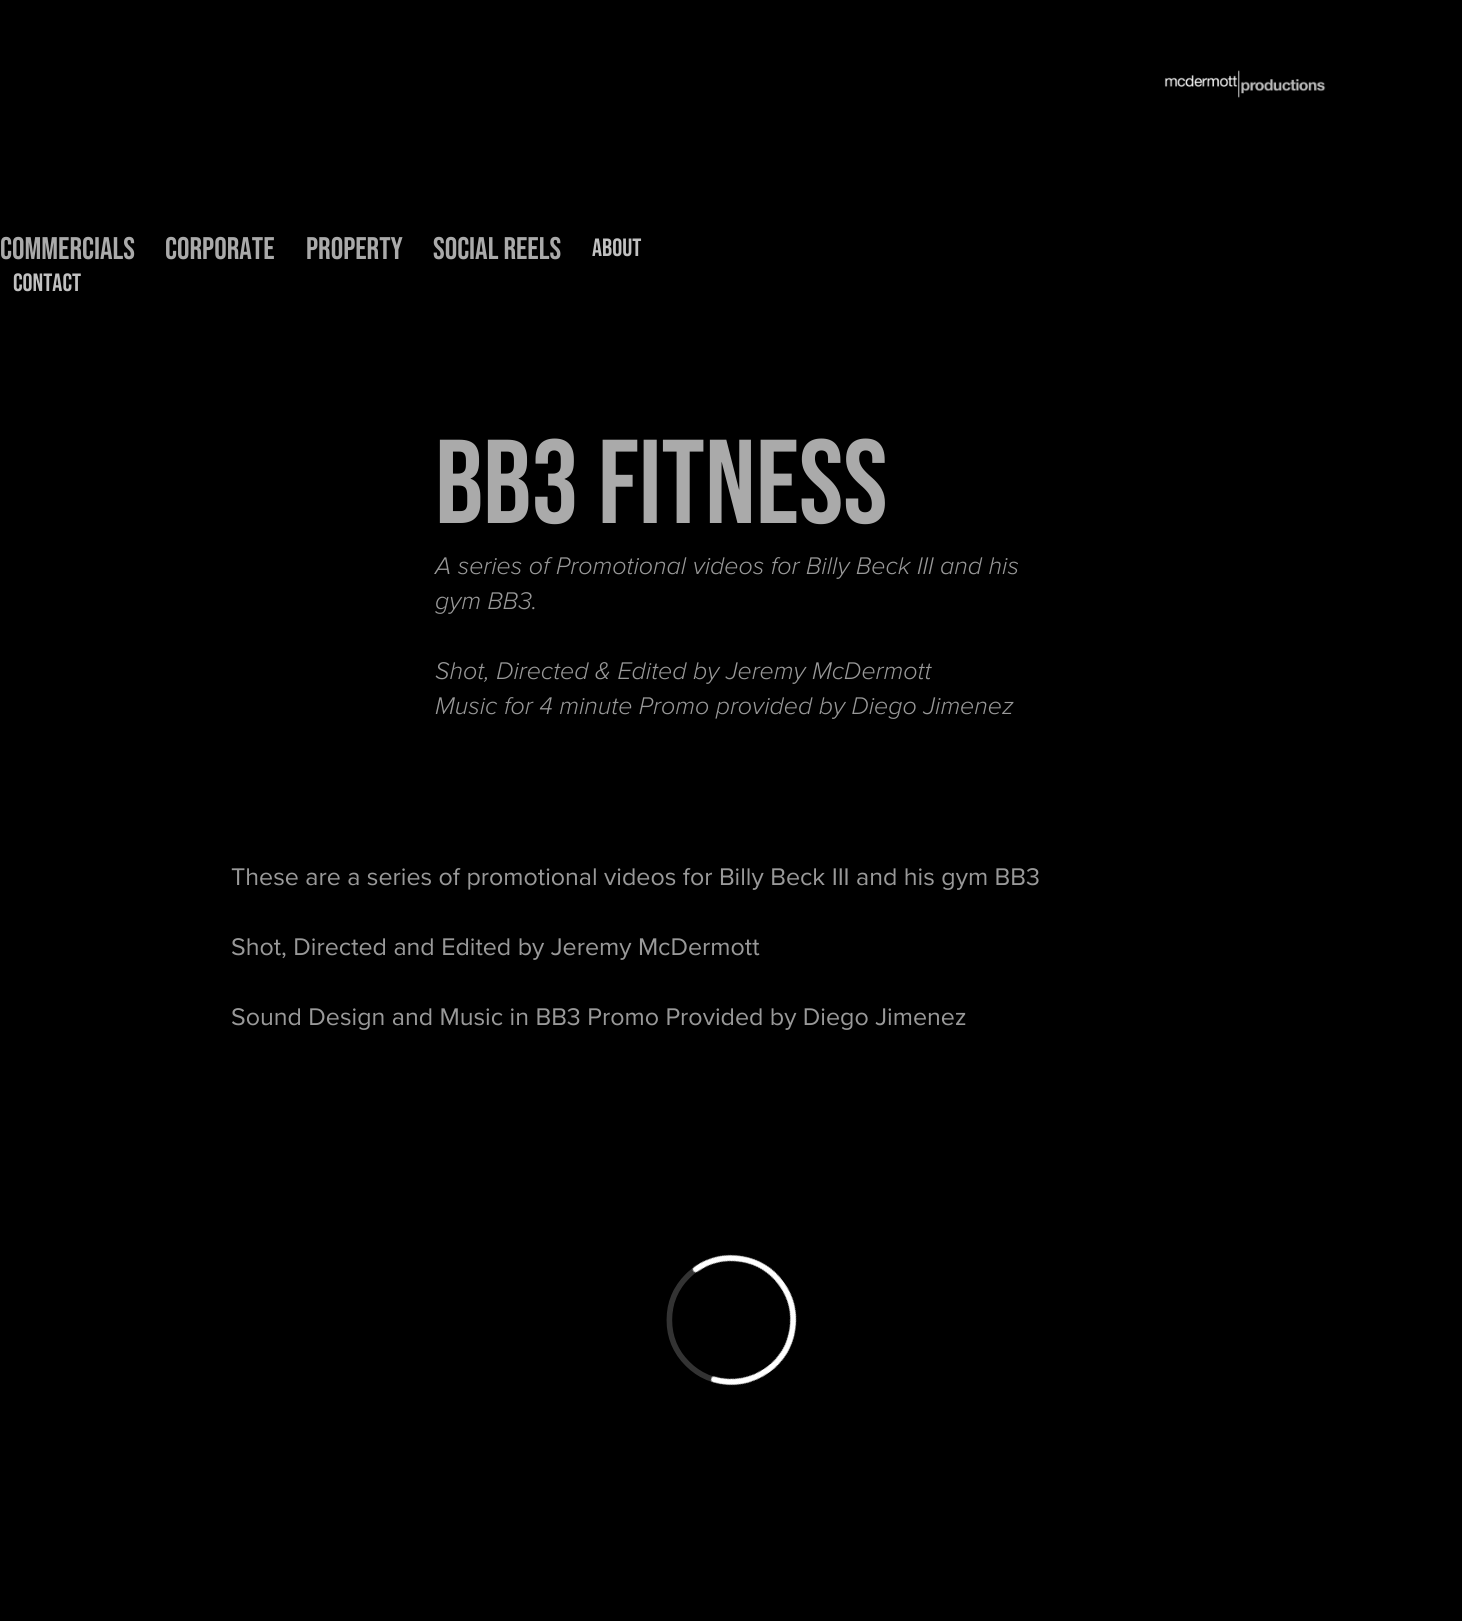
import math
import cairocffi as cairo

surface = cairo.ImageSurface(cairo.FORMAT_RGB24, 1462, 1621)
ctx = cairo.Context(surface)
options = cairo.FontOptions()
options.set_hint_metrics(cairo.HINT_METRICS_OFF)
options.set_hint_style(cairo.HINT_STYLE_NONE)
ctx.set_font_options(options)
ctx.set_miter_limit(4)


def rgb(r, g, b):
    ctx.set_source_rgb(r / 255, g / 255, b / 255)


def face(family, size, italic, bold):
    ctx.select_font_face(family, cairo.FONT_SLANT_ITALIC if italic else cairo.FONT_SLANT_NORMAL, cairo.FONT_WEIGHT_BOLD if bold else cairo.FONT_WEIGHT_NORMAL)
    ctx.set_font_size(size)


def label(x, y, s):
    ctx.move_to(x, y)
    ctx.show_text(s)


def image(path, x, y, w, h):
    ctx.save()
    ctx.set_source_surface(cairo.ImageSurface.create_from_png(path), x, y)
    ctx.rectangle(x, y, w, h)
    ctx.fill()
    ctx.restore()


rgb(0, 0, 0)
ctx.paint()
image('image0.png', 1164, 70, 162, 28)
face('Bebas Neue', 31.25, 0, 0)
rgb(170, 170, 170)
label(0, 259, 'COMMERCIALS')
label(165, 259, 'CORPORATE')
label(306, 259, 'PROPERTY')
label(433, 259, 'SOCIAL REELS')
face('Bebas Neue', 25, 0, 0)
rgb(193, 193, 193)
label(592, 256, 'ABOUT')
label(13, 291, 'CONTACT')
face('Bebas Neue', 119, 0, 0)
rgb(170, 170, 170)
label(435, 523, 'BB3 Fitness')
face('Proxima Nova Light', 25, 1, 0)
rgb(153, 153, 153)
label(435, 574, 'A series of Promotional videos for Billy Beck III and his')
label(435, 609, 'gym BB3.')
label(435, 679, 'Shot, Directed & Edited by Jeremy McDermott')
label(435, 714, 'Music for 4 minute Promo provided by Diego Jimenez')
face('Proxima Nova', 25, 0, 0)
label(231, 885, 'These are a series of promotional videos for Billy Beck III and his gym BB3')
label(231, 955, 'Shot, Directed and Edited by Jeremy McDermott')
label(231, 1025, 'Sound Design and Music in BB3 Promo Provided by Diego Jimenez')
image('image1.png', 666, 1254, 131, 132)
surface.write_to_png('render.png')
